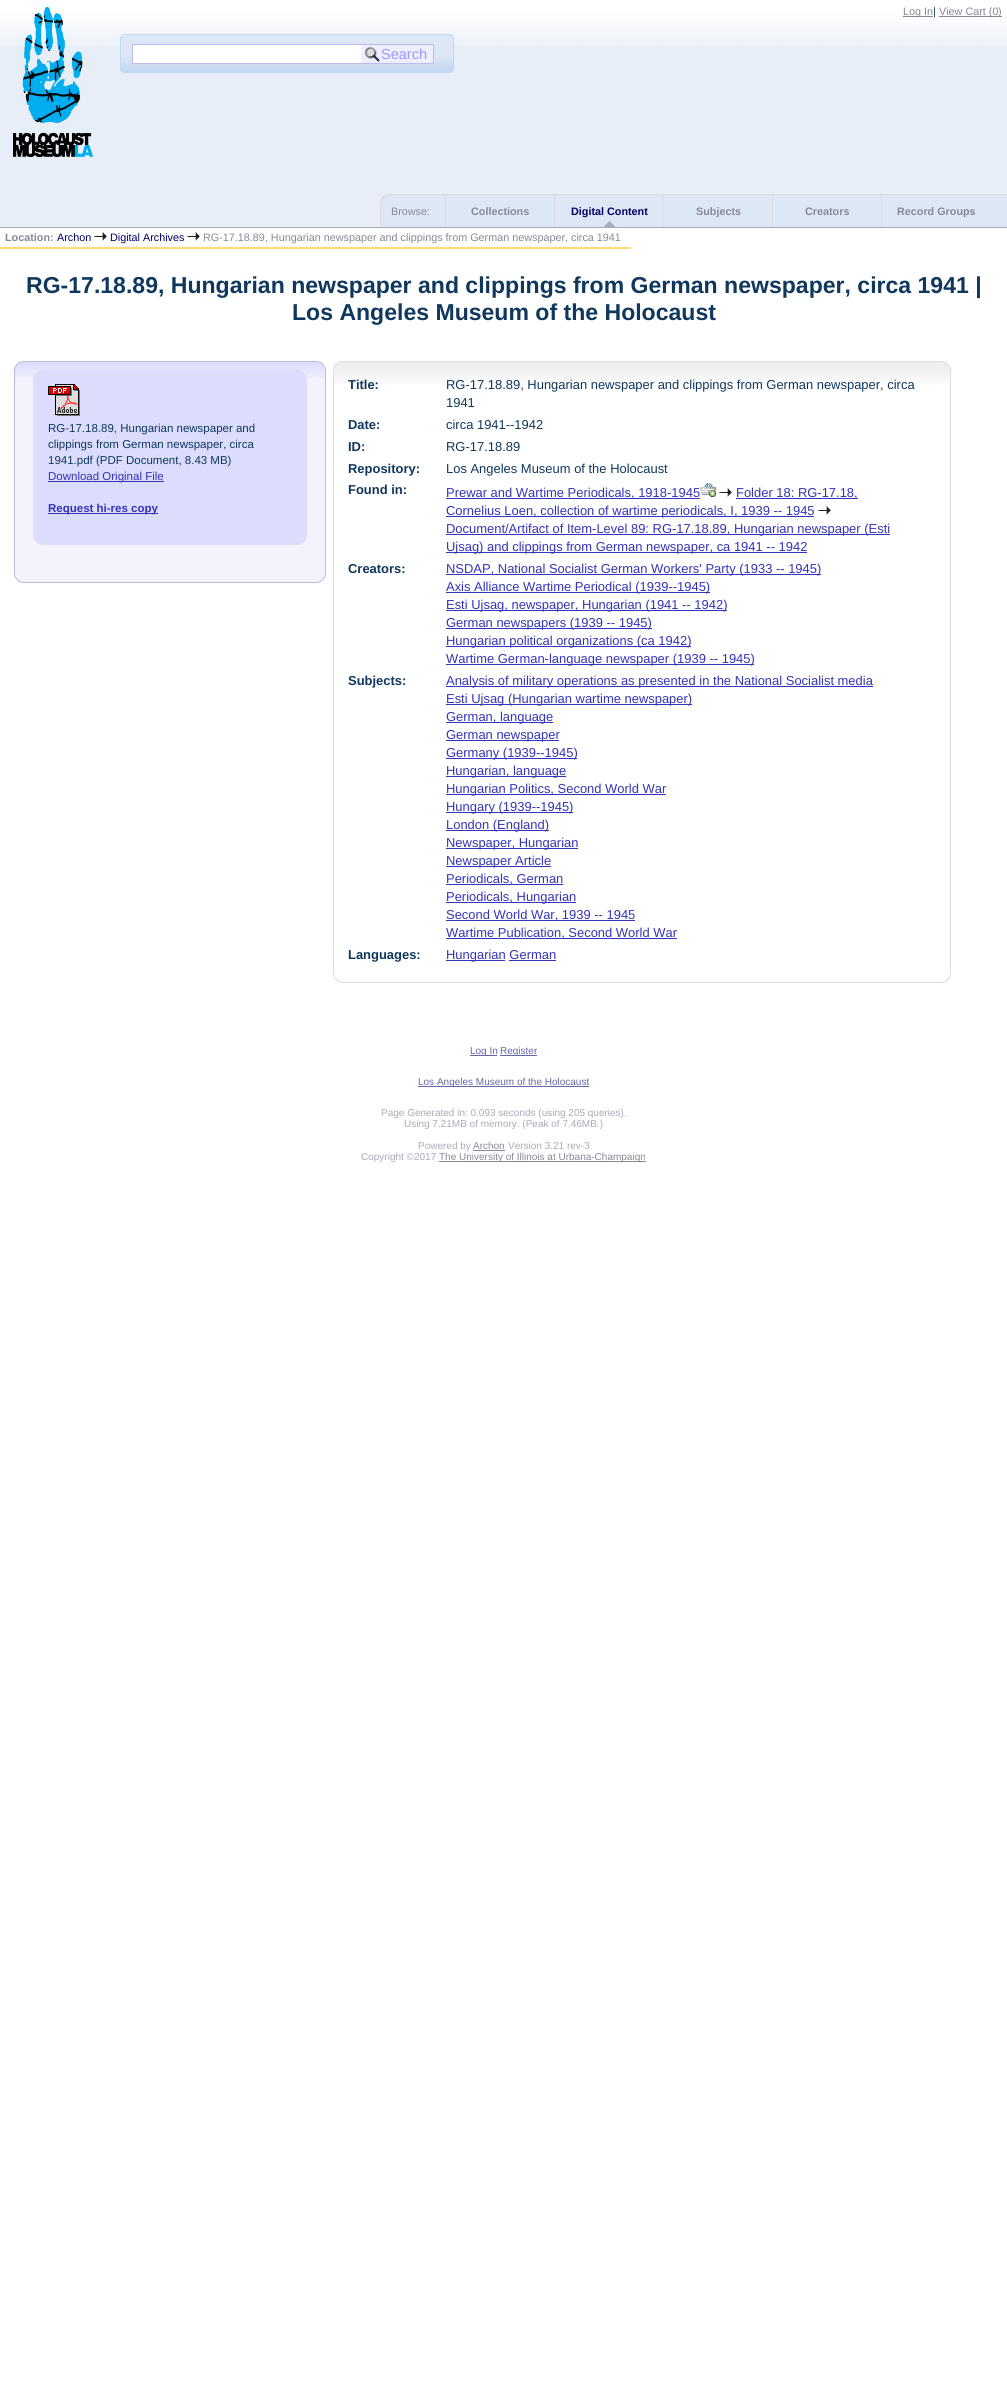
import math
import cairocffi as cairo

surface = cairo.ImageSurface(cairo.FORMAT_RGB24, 1007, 2387)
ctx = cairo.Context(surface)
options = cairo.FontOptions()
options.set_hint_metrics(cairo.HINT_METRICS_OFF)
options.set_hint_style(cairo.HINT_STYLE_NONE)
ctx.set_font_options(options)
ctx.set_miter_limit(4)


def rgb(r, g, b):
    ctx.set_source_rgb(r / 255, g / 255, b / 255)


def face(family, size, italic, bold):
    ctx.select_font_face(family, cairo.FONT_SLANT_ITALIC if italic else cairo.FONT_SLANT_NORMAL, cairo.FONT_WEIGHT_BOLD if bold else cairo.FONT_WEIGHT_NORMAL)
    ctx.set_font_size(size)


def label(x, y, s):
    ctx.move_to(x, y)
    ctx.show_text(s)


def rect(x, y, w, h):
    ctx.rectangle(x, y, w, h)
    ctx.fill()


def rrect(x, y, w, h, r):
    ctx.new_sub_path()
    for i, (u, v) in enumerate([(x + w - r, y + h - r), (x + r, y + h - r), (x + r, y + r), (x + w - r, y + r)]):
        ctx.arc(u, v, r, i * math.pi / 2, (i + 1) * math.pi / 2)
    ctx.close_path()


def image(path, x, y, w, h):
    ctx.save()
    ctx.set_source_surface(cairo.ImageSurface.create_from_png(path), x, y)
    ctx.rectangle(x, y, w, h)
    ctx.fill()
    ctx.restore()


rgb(255, 255, 255)
ctx.paint()
rgb(232, 238, 247)
rect(0, 46, 1007, 181)
image('image0.png', 0, 7, 1007, 39)
rgb(170, 170, 187)
rect(0, 227, 1007, 1)
rgb(136, 136, 153)
rect(903, 16, 30, 1)
face('Liberation Sans', 10.8, 0, 0)
label(903, 15, 'Log In')
rgb(16, 55, 93)
label(933, 15, '|')
rgb(136, 136, 153)
rect(939, 16, 53, 1)
label(939, 15, 'View Cart (0')
rect(992, 16, 10, 1)
label(998, 15, ')')
image('image1.png', 13, 7, 80, 150)
rgb(221, 231, 246)
rrect(120, 34, 334, 39, 5)
ctx.fill()
image('image2.png', 120, 57, 334, 15)
rrect(120.5, 34.5, 333, 38, 4.5)
rgb(196, 215, 244)
ctx.set_line_width(1)
ctx.stroke()
rgb(255, 255, 255)
rect(133, 45, 228, 18)
ctx.rectangle(132.5, 44.5, 232, 19)
rgb(187, 187, 238)
ctx.stroke()
rgb(238, 238, 255)
rect(361, 45, 72, 18)
image('image3.png', 364, 46, 16, 16)
rgb(187, 187, 238)
rect(361, 44, 73, 1)
rect(433, 44, 1, 20)
rect(361, 63, 73, 1)
face('Liberation Sans', 14.5, 0, 0)
rgb(153, 153, 255)
label(381, 59, 'Search')
rgb(221, 231, 246)
ctx.new_path()
ctx.move_to(390, 194)
ctx.line_to(1007, 194)
ctx.line_to(1007, 227)
ctx.line_to(380, 227)
ctx.line_to(380, 204)
ctx.curve_to(380, 198.5, 384.5, 194, 390, 194)
ctx.close_path()
ctx.fill()
rgb(221, 221, 221)
ctx.set_fill_rule(cairo.FILL_RULE_EVEN_ODD)
ctx.new_path()
ctx.move_to(390, 194)
ctx.line_to(1007, 194)
ctx.line_to(1007, 227)
ctx.line_to(380, 227)
ctx.line_to(380, 204)
ctx.curve_to(380, 198, 384, 194, 390, 194)
ctx.close_path()
ctx.move_to(390, 195)
ctx.line_to(1007, 195)
ctx.line_to(1007, 227)
ctx.line_to(381, 227)
ctx.line_to(381, 204)
ctx.curve_to(381, 199, 385, 195, 390, 195)
ctx.close_path()
ctx.fill()
face('Liberation Sans', 10.8, 0, 0)
rgb(136, 136, 153)
label(391, 215, 'Browse:')
rgb(221, 221, 221)
rect(445, 195, 1, 32)
face('Liberation Sans', 10.8, 0, 1)
rgb(136, 136, 153)
label(471, 215, 'Collections')
image('image4.png', 604, 221, 11, 6)
rgb(221, 221, 221)
rect(554, 195, 1, 32)
rgb(0, 0, 102)
label(571, 215, 'Digital Content')
rgb(221, 221, 221)
rect(663, 195, 1, 32)
rgb(136, 136, 153)
label(696, 215, 'Subjects')
rgb(221, 221, 221)
rect(772, 195, 1, 32)
rgb(136, 136, 153)
label(805, 215, 'Creators')
rgb(221, 221, 221)
rect(881, 195, 1, 32)
rgb(136, 136, 153)
label(897, 215, 'Record Groups')
rgb(251, 219, 122)
rect(0, 247, 631, 2)
rgb(136, 136, 153)
label(5, 241, 'Location:')
face('Liberation Sans', 10.8, 0, 0)
rgb(0, 0, 102)
label(57, 241, 'Archon')
image('image5.png', 94, 232, 13, 9)
label(110, 241, 'Digital Archives')
image('image5.png', 187, 232, 13, 9)
rgb(136, 136, 153)
label(203, 241, 'RG-17.18.89, Hungarian newspaper and clippings from German newspaper, circa 1941')
face('Liberation Sans', 23.05, 0, 1)
rgb(16, 55, 93)
label(26, 293, 'RG-17.18.89, Hungarian newspaper and clippings from German newspaper, circa 1941 |')
label(292, 320, 'Los Angeles Museum of the Holocaust')
rgb(243, 243, 253)
rrect(14, 361, 312, 222, 10)
ctx.fill()
image('image6.png', 14, 362, 312, 16)
rrect(14.5, 361.5, 311, 221, 9.5)
rgb(187, 187, 221)
ctx.stroke()
rgb(220, 220, 253)
rrect(33, 370, 274, 175, 10)
ctx.fill()
image('image7.png', 48, 384, 32, 32)
face('Liberation Sans', 11.5, 0, 0)
rgb(16, 55, 93)
label(48, 432, 'RG-17.18.89, Hungarian newspaper and')
label(48, 448, 'clippings from German newspaper, circa')
label(48, 464, '1941.pdf (PDF Document, 8.43 MB)')
rgb(51, 51, 187)
rect(48, 481, 116, 1)
label(48, 480, 'Download Original File')
rect(48, 513, 110, 1)
face('Liberation Sans', 11.5, 0, 1)
label(48, 512, 'Request hi-res copy')
image('image8.png', 333, 362, 618, 22)
rrect(333.5, 361.5, 617, 621, 9.5)
rgb(221, 221, 221)
ctx.stroke()
face('Liberation Sans', 12.95, 0, 1)
rgb(16, 55, 93)
label(348, 389, 'Title:')
face('Liberation Sans', 12.95, 0, 0)
label(446, 389, 'RG-17.18.89, Hungarian newspaper and clippings from German newspaper, circa')
label(446, 407, '1941')
face('Liberation Sans', 12.95, 0, 1)
label(348, 429, 'Date:')
face('Liberation Sans', 12.95, 0, 0)
label(446, 429, 'circa 1941--1942')
face('Liberation Sans', 12.95, 0, 1)
label(348, 451, 'ID:')
face('Liberation Sans', 12.95, 0, 0)
label(446, 451, 'RG-17.18.89')
face('Liberation Sans', 12.95, 0, 1)
label(348, 473, 'Repository:')
face('Liberation Sans', 12.95, 0, 0)
label(446, 473, 'Los Angeles Museum of the Holocaust')
face('Liberation Sans', 12.95, 0, 1)
label(348, 494, 'Found in:')
rgb(51, 51, 187)
rect(446, 498, 254, 1)
face('Liberation Sans', 12.95, 0, 0)
label(446, 497, 'Prewar and Wartime Periodicals, 1918-1945')
image('image9.png', 700, 483, 16, 14)
image('image5.png', 719, 488, 13, 9)
rect(736, 498, 122, 1)
label(736, 497, 'Folder 18: RG-17.18,')
rect(446, 516, 368, 1)
label(446, 515, 'Cornelius Loen, collection of wartime periodicals, I, 1939 -- 1945')
image('image5.png', 818, 506, 13, 9)
rect(446, 534, 444, 1)
label(446, 533, 'Document/Artifact of Item-Level 89: RG-17.18.89, Hungarian newspaper (Esti')
rect(446, 552, 361, 1)
label(446, 551, 'Ujsag) and clippings from German newspaper, ca 1941 -- 1942')
face('Liberation Sans', 12.95, 0, 1)
rgb(16, 55, 93)
label(348, 573, 'Creators:')
rgb(51, 51, 187)
rect(446, 574, 375, 1)
face('Liberation Sans', 12.95, 0, 0)
label(446, 573, 'NSDAP, National Socialist German Workers\' Party (1933 -- 1945)')
rect(446, 592, 264, 1)
label(446, 591, 'Axis Alliance Wartime Periodical (1939--1945)')
rect(446, 610, 281, 1)
label(446, 609, 'Esti Ujsag, newspaper, Hungarian (1941 -- 1942)')
rect(446, 628, 206, 1)
label(446, 627, 'German newspapers (1939 -- 1945)')
rect(446, 646, 245, 1)
label(446, 645, 'Hungarian political organizations (ca 1942)')
rect(446, 664, 308, 1)
label(446, 663, 'Wartime German-language newspaper (1939 -- 1945)')
face('Liberation Sans', 12.95, 0, 1)
rgb(16, 55, 93)
label(348, 685, 'Subjects:')
rgb(51, 51, 187)
rect(446, 686, 427, 1)
face('Liberation Sans', 12.95, 0, 0)
label(446, 685, 'Analysis of military operations as presented in the National Socialist media')
rect(446, 704, 246, 1)
label(446, 703, 'Esti Ujsag (Hungarian wartime newspaper)')
rect(446, 722, 107, 1)
label(446, 721, 'German, language')
rect(446, 740, 113, 1)
label(446, 739, 'German newspaper')
rect(446, 758, 131, 1)
label(446, 757, 'Germany (1939--1945)')
rect(446, 776, 120, 1)
label(446, 775, 'Hungarian, language')
rect(446, 794, 220, 1)
label(446, 793, 'Hungarian Politics, Second World War')
rect(446, 812, 127, 1)
label(446, 811, 'Hungary (1939--1945)')
rect(446, 830, 103, 1)
label(446, 829, 'London (England)')
rect(446, 848, 132, 1)
label(446, 847, 'Newspaper, Hungarian')
rect(446, 866, 105, 1)
label(446, 865, 'Newspaper Article')
rect(446, 884, 117, 1)
label(446, 883, 'Periodicals, German')
rect(446, 902, 130, 1)
label(446, 901, 'Periodicals, Hungarian')
rect(446, 920, 189, 1)
label(446, 919, 'Second World War, 1939 -- 1945')
rect(446, 938, 231, 1)
label(446, 937, 'Wartime Publication, Second World War')
face('Liberation Sans', 12.95, 0, 1)
rgb(16, 55, 93)
label(348, 959, 'Languages:')
rgb(51, 51, 187)
rect(446, 960, 59, 1)
face('Liberation Sans', 12.95, 0, 0)
label(446, 959, 'Hungarian German')
rect(509, 960, 47, 1)
rgb(102, 102, 170)
rect(470, 1055, 27, 1)
face('Liberation Sans', 10, 0, 0)
label(470, 1054, 'Log In')
rect(500, 1055, 37, 1)
label(500, 1054, 'Register')
rect(418, 1086, 171, 1)
label(418, 1085, 'Los Angeles Museum of the Holocaust')
rgb(170, 170, 187)
label(381, 1116, 'Page Generated in: 0.093 seconds (using 205 queries).')
label(404, 1127, 'Using 7.21MB of memory. (Peak of 7.46MB.)')
label(418, 1149, 'Powered by')
rgb(136, 136, 153)
label(473, 1149, 'Archon')
rect(473, 1150, 32, 1)
rgb(170, 170, 187)
label(508, 1149, 'Version 3.21 rev-3')
label(361, 1160, 'Copyright ©2017')
rgb(136, 136, 153)
rect(439, 1161, 207, 1)
label(439, 1160, 'The University of Illinois at Urbana-Champaign')
surface.write_to_png('render.png')
